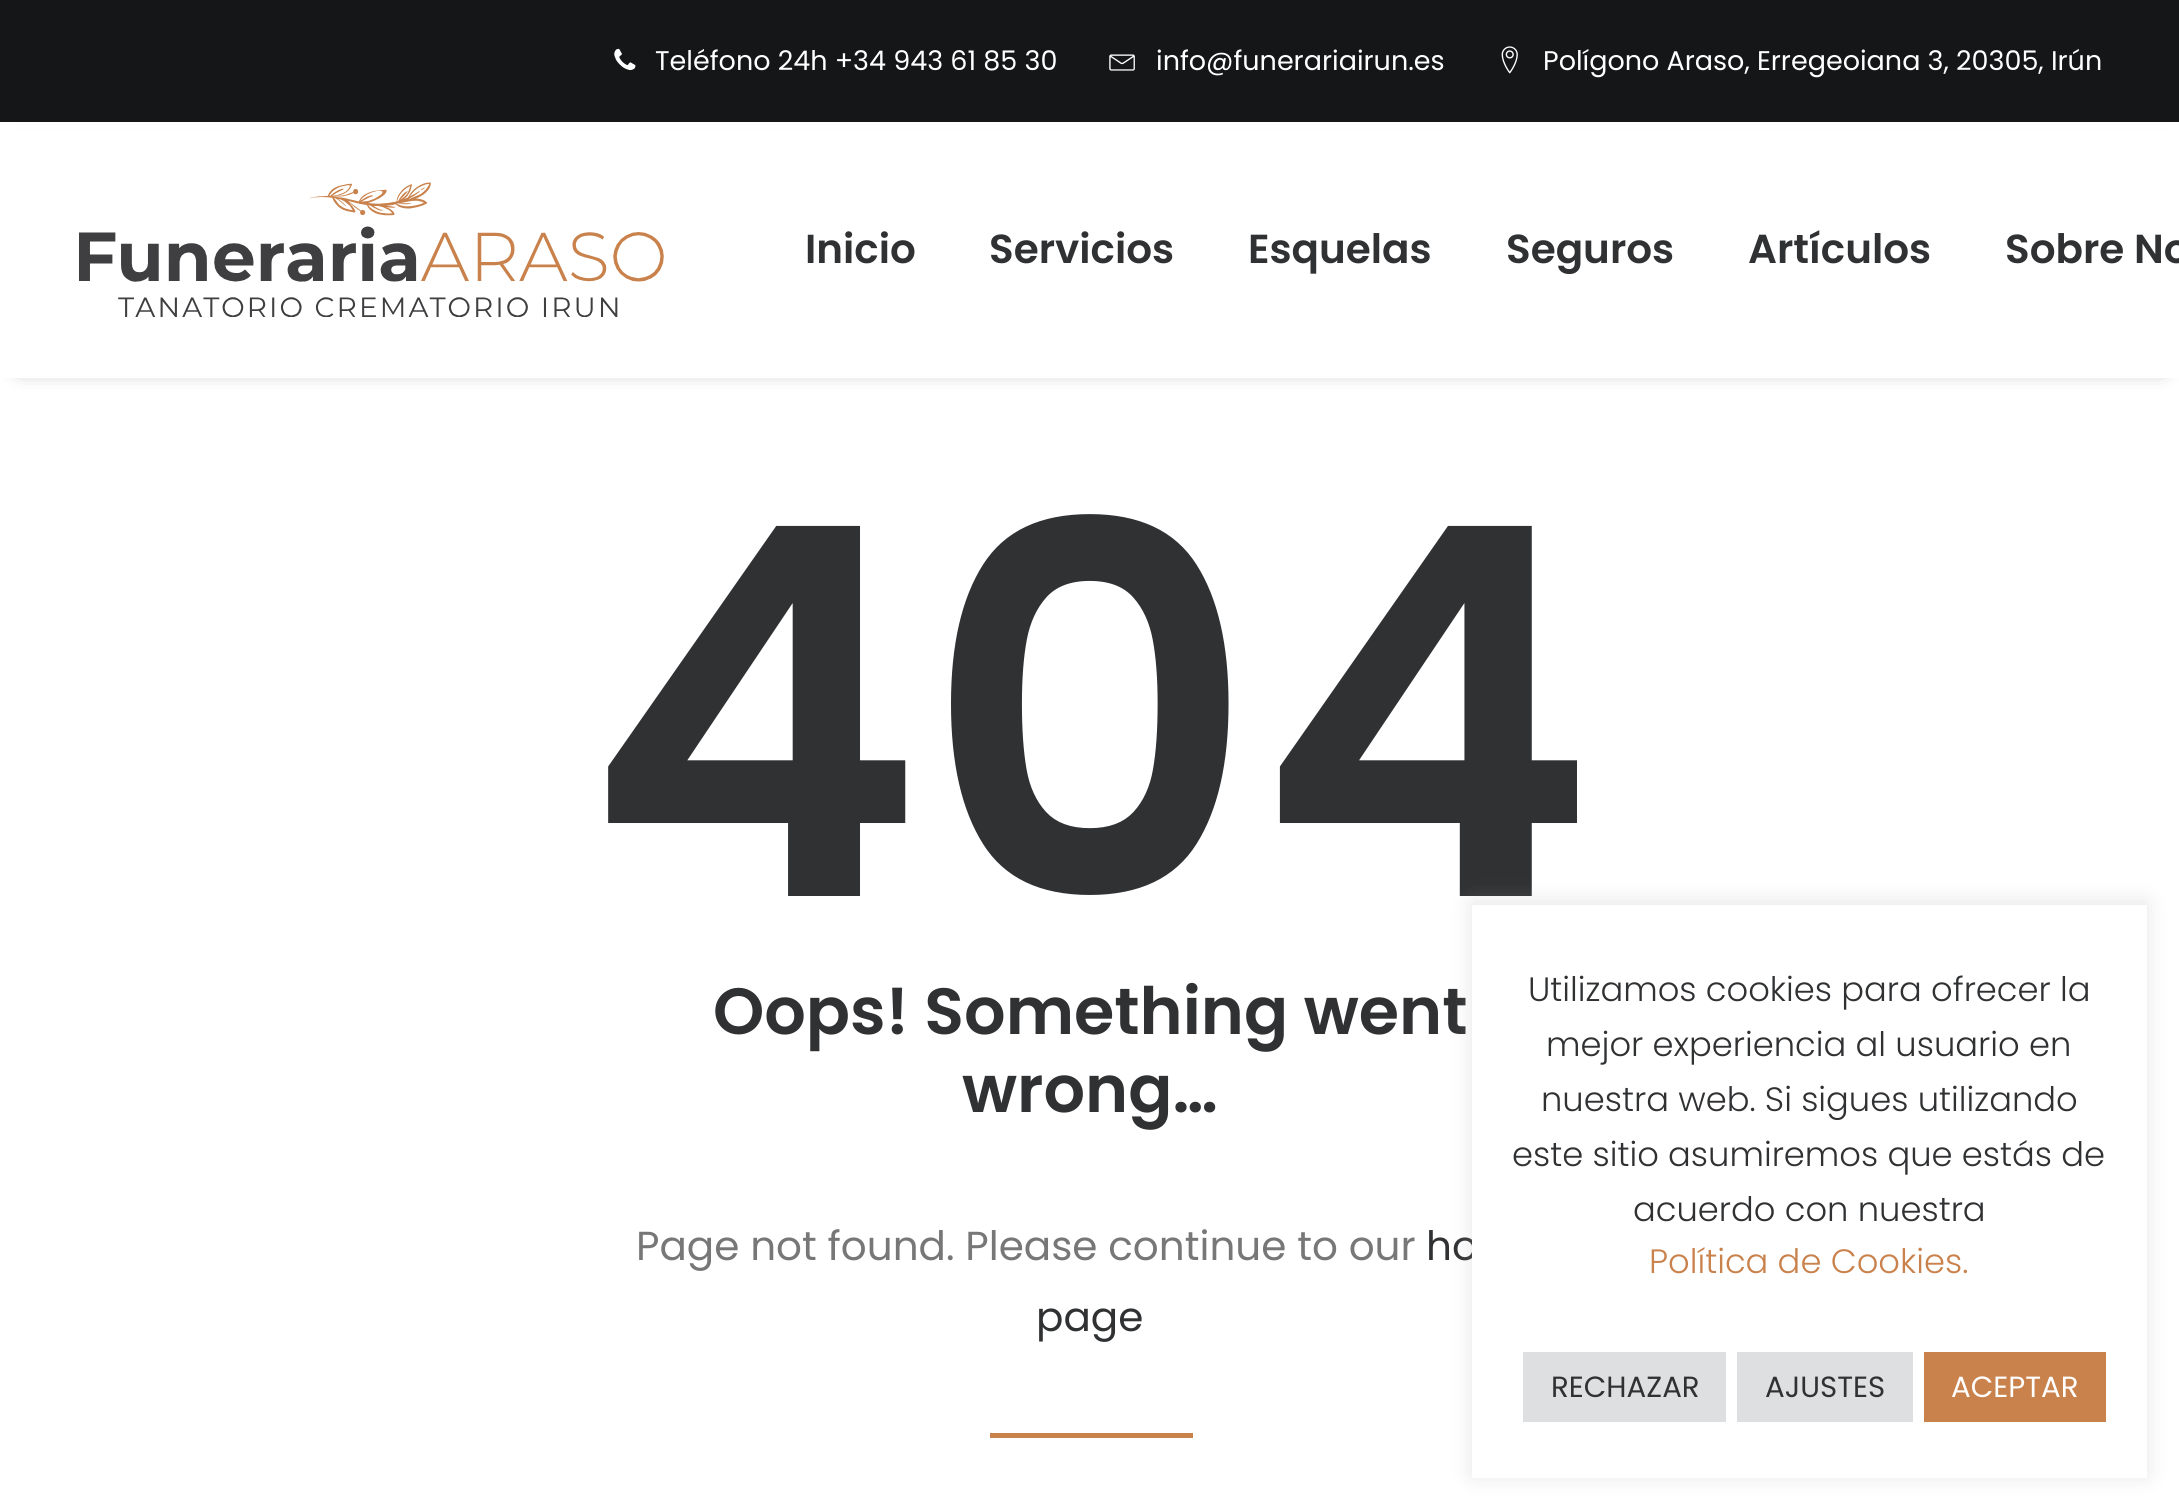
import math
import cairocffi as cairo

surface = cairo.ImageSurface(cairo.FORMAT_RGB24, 2179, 1512)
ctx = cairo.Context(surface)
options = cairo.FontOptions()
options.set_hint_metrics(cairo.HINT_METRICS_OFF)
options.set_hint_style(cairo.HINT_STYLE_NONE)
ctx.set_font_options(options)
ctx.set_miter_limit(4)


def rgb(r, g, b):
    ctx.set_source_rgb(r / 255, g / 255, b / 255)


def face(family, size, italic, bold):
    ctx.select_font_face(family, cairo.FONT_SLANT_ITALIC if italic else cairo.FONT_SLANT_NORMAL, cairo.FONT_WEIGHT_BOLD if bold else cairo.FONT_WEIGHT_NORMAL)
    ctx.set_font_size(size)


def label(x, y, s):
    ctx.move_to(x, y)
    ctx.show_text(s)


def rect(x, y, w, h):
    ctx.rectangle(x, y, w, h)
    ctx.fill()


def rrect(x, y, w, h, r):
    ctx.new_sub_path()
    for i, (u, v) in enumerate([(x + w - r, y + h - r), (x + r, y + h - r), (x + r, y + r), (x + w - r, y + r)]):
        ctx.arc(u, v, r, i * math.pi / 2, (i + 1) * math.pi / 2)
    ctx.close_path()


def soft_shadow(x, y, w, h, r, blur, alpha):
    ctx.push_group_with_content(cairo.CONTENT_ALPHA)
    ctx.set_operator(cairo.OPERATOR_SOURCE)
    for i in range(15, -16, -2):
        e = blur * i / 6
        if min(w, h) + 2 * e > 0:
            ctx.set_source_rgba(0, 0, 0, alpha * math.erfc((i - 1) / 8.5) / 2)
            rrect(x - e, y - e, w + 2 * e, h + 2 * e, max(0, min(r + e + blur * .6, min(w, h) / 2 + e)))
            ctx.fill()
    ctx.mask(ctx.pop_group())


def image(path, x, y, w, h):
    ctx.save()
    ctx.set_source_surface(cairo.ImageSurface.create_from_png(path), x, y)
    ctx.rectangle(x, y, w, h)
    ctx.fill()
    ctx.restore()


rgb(255, 255, 255)
ctx.paint()
rgb(0, 0, 0)
soft_shadow(20, 153, 2142, 212, 0, 11, 0.6)
rgb(20, 22, 24)
rect(0, 0, 2179, 122)
image('image0.png', 614, 48, 22, 22)
face('Poppins', 27, 0, 0)
rgb(255, 255, 255)
label(655, 70, 'Teléfono 24h +34 943 61 85 30')
image('image1.png', 1109, 54, 26, 17)
label(1156, 70, 'info@funerariairun.es')
image('image2.png', 1501, 46, 17, 28)
label(1543, 70, 'Polígono Araso, Erregeoiana 3, 20305, Irún')
rect(0, 130, 2179, 248)
image('image3.png', 79, 182, 585, 135)
face('Poppins SemiBold', 40.5, 0, 0)
rgb(48, 49, 51)
label(805, 263, 'Inicio')
label(989, 263, 'Servicios')
label(1248, 263, 'Esquelas')
label(1506, 263, 'Seguros')
label(1748, 263, 'Artículos')
label(2005, 263, 'Sobre No')
face('Poppins SemiBold', 514, 0, 0)
label(584, 896, '404')
face('Poppins SemiBold', 65.25, 0, 0)
label(713, 1034, 'Oops! Something went')
label(962, 1112, 'wrong…')
face('Poppins', 40.5, 0, 0)
rgb(119, 119, 119)
label(636, 1260, 'Page not found. Please continue to our')
rgb(48, 49, 51)
label(1426, 1260, 'ho')
label(1036, 1331, 'page')
rgb(201, 130, 76)
rect(990, 1433, 203, 5)
rgb(172, 171, 171)
soft_shadow(1472, 902, 675, 574, 0, 11, 0.3)
rgb(255, 255, 255)
rect(1472, 905, 675, 573)
face('Poppins Light', 33.75, 0, 0)
rgb(48, 49, 51)
label(1528, 1001, 'Utilizamos cookies para ofrecer la')
label(1546, 1056, 'mejor experiencia al usuario en')
label(1541, 1111, 'nuestra web. Si sigues utilizando')
label(1512, 1166, 'este sitio asumiremos que estás de')
label(1633, 1221, 'acuerdo con nuestra')
rgb(201, 130, 76)
label(1649, 1273, 'Política de Cookies.')
rgb(222, 223, 224)
rect(1523, 1352, 203, 70)
face('Poppins', 29.25, 0, 0)
rgb(48, 49, 51)
label(1551, 1397, 'RECHAZAR')
rgb(222, 223, 224)
rect(1737, 1352, 176, 70)
rgb(48, 49, 51)
label(1765, 1397, 'AJUSTES')
rgb(201, 130, 76)
rect(1924, 1352, 182, 70)
rgb(255, 255, 255)
label(1951, 1397, 'ACEPTAR')
surface.write_to_png('render.png')
